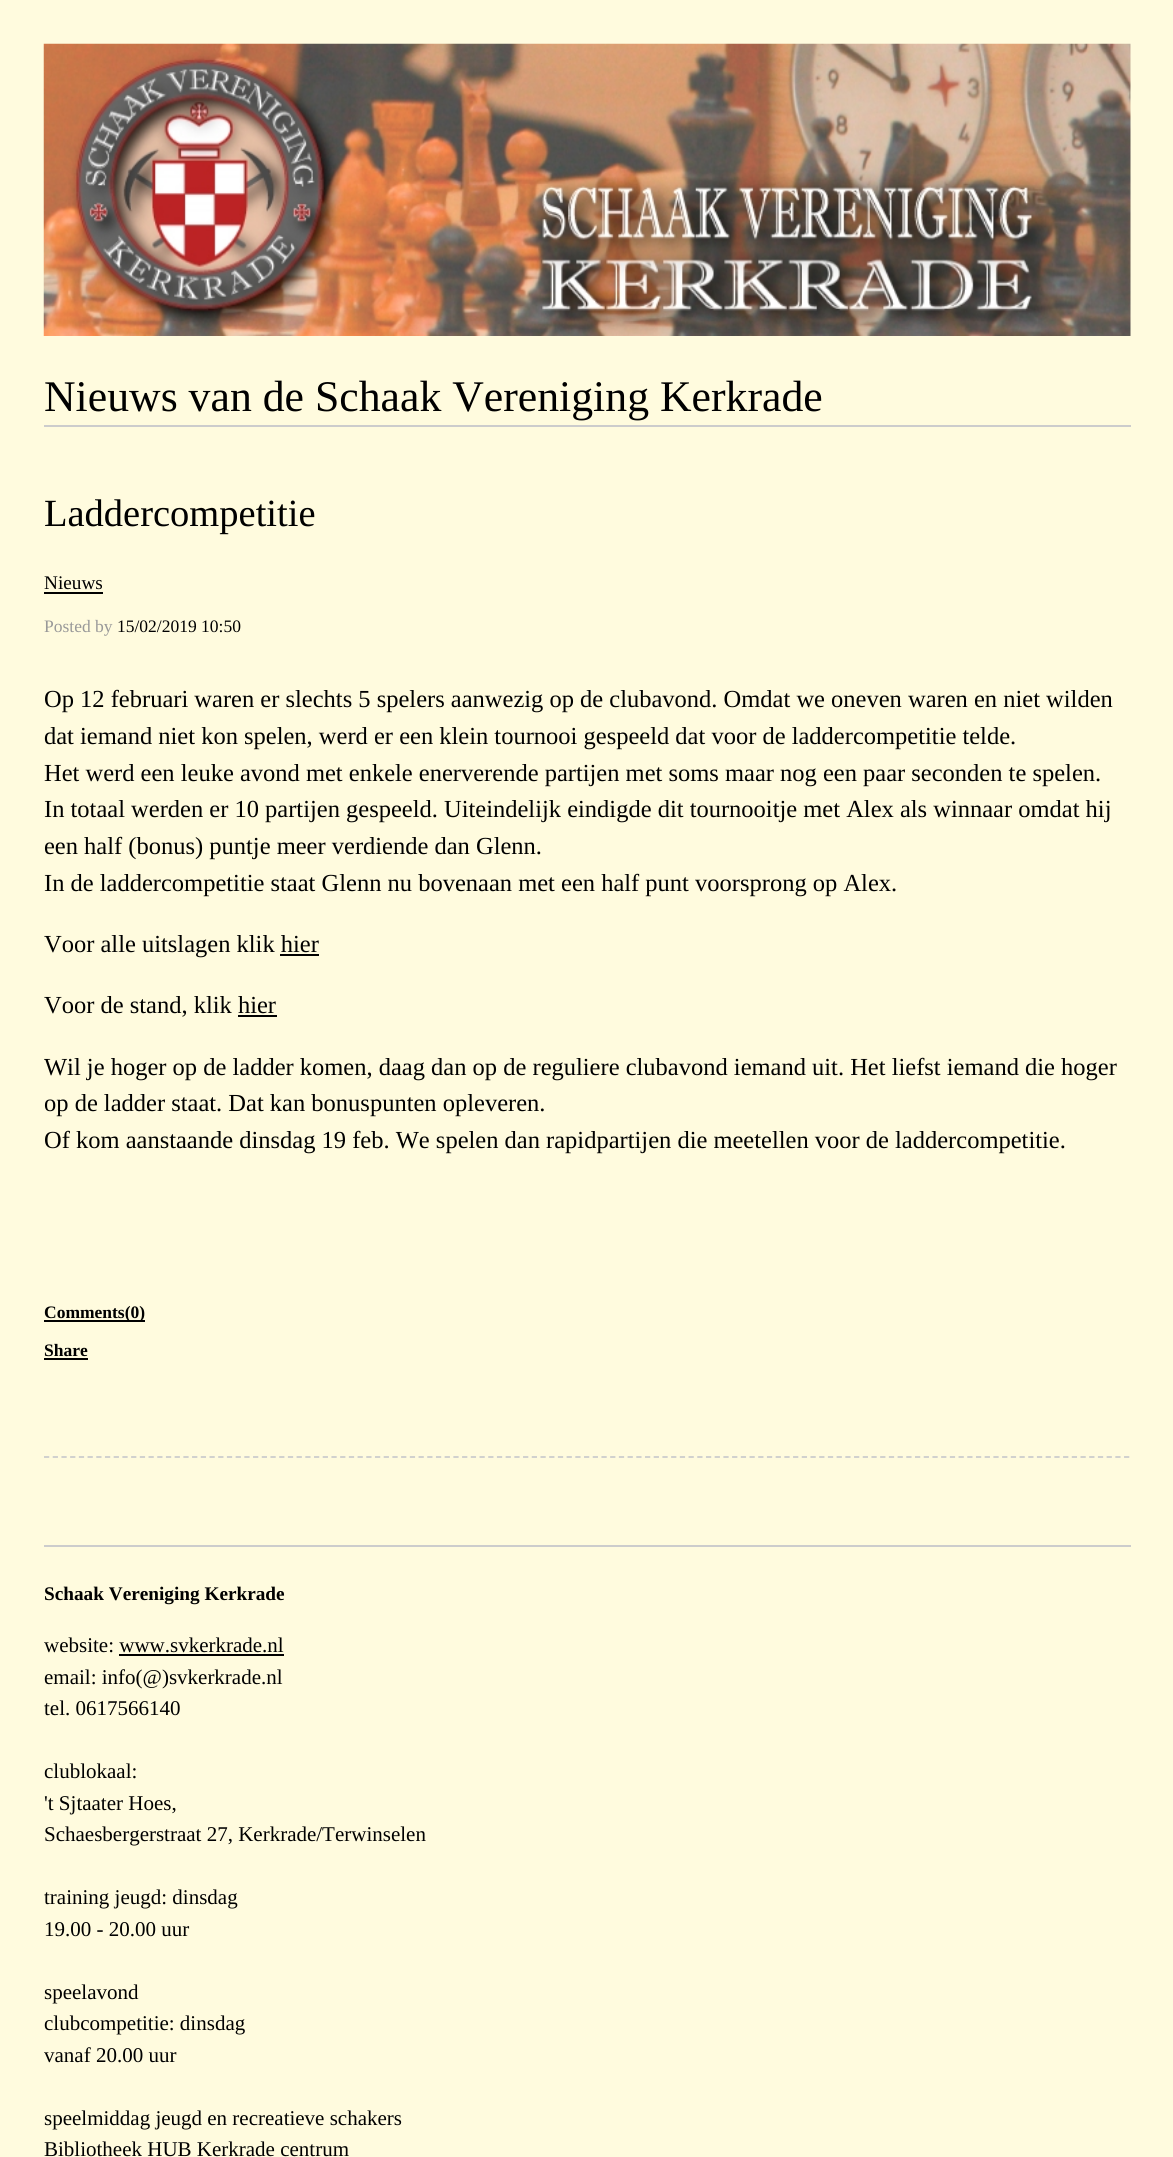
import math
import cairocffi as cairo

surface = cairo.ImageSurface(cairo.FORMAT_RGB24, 1173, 2157)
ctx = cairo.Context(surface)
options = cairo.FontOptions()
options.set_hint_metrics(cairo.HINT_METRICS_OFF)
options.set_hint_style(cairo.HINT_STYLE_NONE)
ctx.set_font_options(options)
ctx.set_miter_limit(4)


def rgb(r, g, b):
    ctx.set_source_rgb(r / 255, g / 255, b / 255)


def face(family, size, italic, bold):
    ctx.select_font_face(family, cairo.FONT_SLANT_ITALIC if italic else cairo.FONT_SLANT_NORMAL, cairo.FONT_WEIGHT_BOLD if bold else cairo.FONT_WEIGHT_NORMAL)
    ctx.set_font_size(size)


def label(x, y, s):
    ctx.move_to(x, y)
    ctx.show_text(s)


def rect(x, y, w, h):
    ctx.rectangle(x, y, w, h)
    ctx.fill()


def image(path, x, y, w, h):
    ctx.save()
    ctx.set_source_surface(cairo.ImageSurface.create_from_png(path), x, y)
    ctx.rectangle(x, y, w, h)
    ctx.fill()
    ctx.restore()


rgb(255, 251, 222)
ctx.paint()
image('image0.png', 43, 43, 1088, 293)
rgb(204, 204, 204)
rect(44, 425, 1087, 2)
face('Liberation Serif', 43.75, 0, 0)
rgb(0, 0, 0)
label(44, 411, 'Nieuws van de Schaak Vereniging Kerkrade')
ctx.new_path()
ctx.move_to(44, 1457)
ctx.line_to(1130.5, 1457)
rgb(204, 204, 204)
ctx.set_line_width(1.8)
ctx.set_dash([5.25, 3.46])
ctx.stroke()
face('Liberation Serif', 38.5, 0, 0)
rgb(0, 0, 0)
label(44, 526, 'Laddercompetitie')
face('Liberation Serif', 19.25, 0, 0)
label(44, 589, 'Nieuws')
rect(44, 592, 59, 2)
face('Liberation Serif', 17.5, 0, 0)
rgb(153, 153, 153)
label(44, 632, 'Posted by')
rgb(0, 0, 0)
label(117, 632, '15/02/2019 10:50')
face('Liberation Serif', 24.5, 0, 0)
label(44, 707, 'Op 12 februari waren er slechts 5 spelers aanwezig op de clubavond. Omdat we oneven waren en niet wilden')
label(44, 744, 'dat iemand niet kon spelen, werd er een klein tournooi gespeeld dat voor de laddercompetitie telde.')
label(44, 781, 'Het werd een leuke avond met enkele enerverende partijen met soms maar nog een paar seconden te spelen.')
label(44, 817, 'In totaal werden er 10 partijen gespeeld. Uiteindelijk eindigde dit tournooitje met Alex als winnaar omdat hij')
label(44, 854, 'een half (bonus) puntje meer verdiende dan Glenn.')
label(44, 891, 'In de laddercompetitie staat Glenn nu bovenaan met een half punt voorsprong op Alex.')
label(44, 952, 'Voor alle uitslagen klik hier')
rect(280, 954, 39, 2)
label(44, 1013, 'Voor de stand, klik hier')
rect(238, 1015, 39, 2)
label(44, 1075, 'Wil je hoger op de ladder komen, daag dan op de reguliere clubavond iemand uit. Het liefst iemand die hoger')
label(44, 1111, 'op de ladder staat. Dat kan bonuspunten opleveren.')
label(44, 1148, 'Of kom aanstaande dinsdag 19 feb. We spelen dan rapidpartijen die meetellen voor de laddercompetitie.')
rect(44, 1320, 101, 2)
face('Liberation Serif', 17.5, 0, 1)
label(44, 1318, 'Comments(0)')
label(44, 1356, 'Share')
rect(44, 1358, 44, 2)
rgb(204, 204, 204)
rect(44, 1545, 1087, 2)
face('Liberation Serif', 19.25, 0, 1)
rgb(0, 0, 0)
label(44, 1600, 'Schaak Vereniging Kerkrade')
face('Liberation Serif', 21, 0, 0)
label(44, 1652, 'website: www.svkerkrade.nl')
rect(119, 1654, 165, 2)
label(44, 1684, 'email: info(@)svkerkrade.nl')
label(44, 1715, 'tel. 0617566140')
label(44, 1778, 'clublokaal:')
label(44, 1810, '\'t Sjtaater Hoes,')
label(44, 1841, 'Schaesbergerstraat 27, Kerkrade/Terwinselen')
label(44, 1904, 'training jeugd: dinsdag')
label(44, 1936, '19.00 - 20.00 uur')
label(44, 1999, 'speelavond')
label(44, 2030, 'clubcompetitie: dinsdag')
label(44, 2062, 'vanaf 20.00 uur')
label(44, 2125, 'speelmiddag jeugd en recreatieve schakers')
label(44, 2156, 'Bibliotheek HUB Kerkrade centrum')
surface.write_to_png('render.png')
